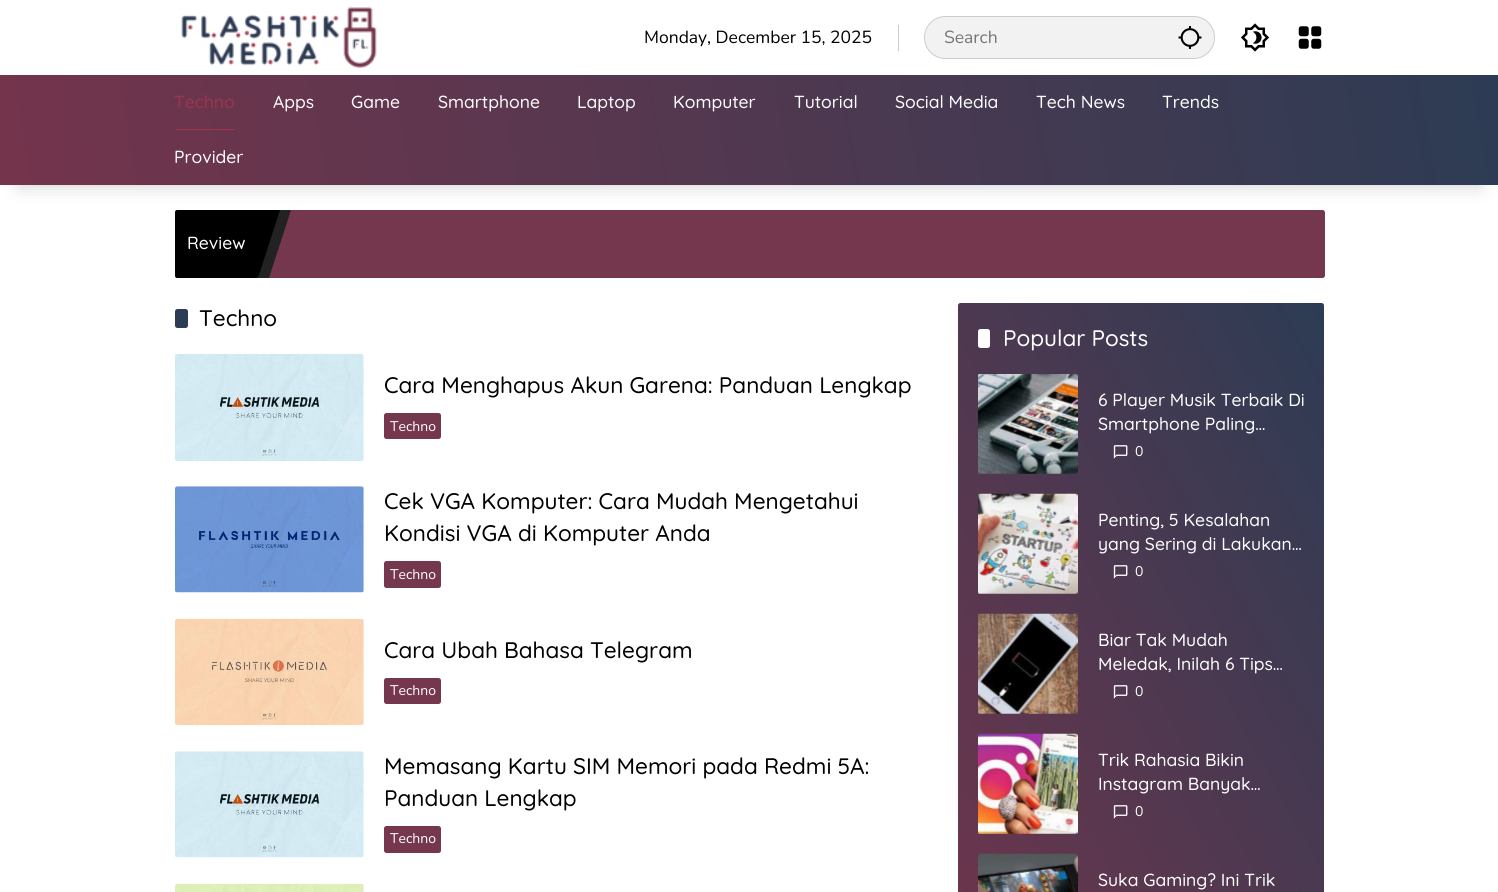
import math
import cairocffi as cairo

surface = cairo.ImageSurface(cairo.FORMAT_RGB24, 1498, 892)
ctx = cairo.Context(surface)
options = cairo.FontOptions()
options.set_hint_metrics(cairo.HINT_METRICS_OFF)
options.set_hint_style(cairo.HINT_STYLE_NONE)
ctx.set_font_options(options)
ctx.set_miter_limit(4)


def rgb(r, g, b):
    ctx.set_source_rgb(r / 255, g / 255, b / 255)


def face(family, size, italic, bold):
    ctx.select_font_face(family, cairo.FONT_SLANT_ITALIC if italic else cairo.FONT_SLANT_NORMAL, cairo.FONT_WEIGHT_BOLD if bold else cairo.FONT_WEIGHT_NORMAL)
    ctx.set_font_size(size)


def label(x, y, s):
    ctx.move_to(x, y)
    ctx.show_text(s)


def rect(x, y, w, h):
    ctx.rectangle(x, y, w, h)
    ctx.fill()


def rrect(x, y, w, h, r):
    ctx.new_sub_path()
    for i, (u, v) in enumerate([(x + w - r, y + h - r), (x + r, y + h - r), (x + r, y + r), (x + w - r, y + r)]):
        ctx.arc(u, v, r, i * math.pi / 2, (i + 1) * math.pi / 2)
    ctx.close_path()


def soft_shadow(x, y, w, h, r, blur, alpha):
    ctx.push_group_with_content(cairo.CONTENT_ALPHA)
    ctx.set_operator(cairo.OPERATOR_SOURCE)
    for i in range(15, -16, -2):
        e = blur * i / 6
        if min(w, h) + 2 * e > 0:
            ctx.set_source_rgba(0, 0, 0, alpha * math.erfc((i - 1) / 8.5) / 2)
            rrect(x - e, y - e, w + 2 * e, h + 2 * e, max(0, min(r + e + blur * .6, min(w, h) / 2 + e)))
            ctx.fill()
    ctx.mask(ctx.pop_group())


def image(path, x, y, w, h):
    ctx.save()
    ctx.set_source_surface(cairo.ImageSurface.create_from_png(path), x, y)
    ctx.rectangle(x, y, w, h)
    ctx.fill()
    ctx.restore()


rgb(255, 255, 255)
ctx.paint()
image('image0.png', 181, 7, 196, 62)
rgb(204, 204, 204)
rect(898, 25, 1, 26)
face('Nunito', 17.5, 0, 0)
rgb(0, 0, 0)
label(644, 43, 'Monday, December 15, 2025')
rgb(242, 242, 242)
rrect(924.5, 16.5, 290, 42, 21)
ctx.fill_preserve()
rgb(204, 204, 204)
ctx.set_line_width(1)
ctx.stroke()
rgb(117, 117, 117)
label(944, 43, 'Search')
image('image1.png', 1178, 26, 24, 23)
image('image2.png', 1241, 23, 28, 29)
image('image3.png', 1298, 26, 24, 23)
rgb(116, 55, 77)
rrect(175, 210, 1150, 68, 2.5)
ctx.fill()
rgb(0, 0, 0)
ctx.new_path()
ctx.move_to(177.5, 210)
ctx.line_to(258, 210)
ctx.line_to(258, 278)
ctx.line_to(177.5, 278)
ctx.curve_to(176, 278, 175, 277, 175, 275.5)
ctx.line_to(175, 212.5)
ctx.curve_to(175, 211, 176, 210, 177.5, 210)
ctx.close_path()
ctx.fill()
rgb(34, 34, 34)
ctx.new_path()
ctx.move_to(279, 210)
ctx.line_to(291, 210)
ctx.line_to(269, 278)
ctx.line_to(257, 278)
ctx.close_path()
ctx.fill()
rgb(0, 0, 0)
ctx.new_path()
ctx.move_to(258, 210)
ctx.line_to(280, 210)
ctx.line_to(258, 278)
ctx.close_path()
ctx.fill()
rgb(0, 0, 0)
soft_shadow(19, 113, 1461, 72, 0, 9.5, 0.2)
gradient = cairo.LinearGradient(13, 260, 1486, 0.2)
gradient.add_color_stop_rgba(0, 0.455, 0.204, 0.298, 1)
gradient.add_color_stop_rgba(1, 0.173, 0.235, 0.329, 1)
ctx.set_source(gradient)
rect(0, 75, 1498, 110)
rgb(156, 52, 76)
rect(175, 129, 60, 1)
face('Quicksand Medium', 17.5, 0, 0)
label(174, 108, 'Techno')
rgb(255, 255, 255)
label(273, 108, 'Apps')
label(351, 108, 'Game')
label(438, 108, 'Smartphone')
label(577, 108, 'Laptop')
label(673, 108, 'Komputer')
label(794, 108, 'Tutorial')
label(895, 108, 'Social Media')
label(1036, 108, 'Tech News')
label(1162, 108, 'Trends')
label(174, 163, 'Provider')
label(187, 249, 'Review')
rgb(44, 60, 84)
rrect(175, 309, 13, 19, 2.5)
ctx.fill()
face('Quicksand Medium', 22.5, 0, 0)
rgb(0, 0, 0)
label(199, 326, 'Techno')
image('image4.png', 175, 354, 189, 107)
label(384, 393, 'Cara Menghapus Akun Garena: Panduan Lengkap')
rgb(116, 55, 77)
rrect(384, 413, 57, 26, 2.5)
ctx.fill()
face('Nunito', 14, 0, 0)
rgb(255, 255, 255)
label(390, 431, 'Techno')
image('image5.png', 175, 486, 189, 107)
face('Quicksand Medium', 22.5, 0, 0)
rgb(0, 0, 0)
label(384, 509, 'Cek VGA Komputer: Cara Mudah Mengetahui')
label(384, 541, 'Kondisi VGA di Komputer Anda')
rgb(116, 55, 77)
rrect(384, 561, 57, 27, 2.5)
ctx.fill()
face('Nunito', 14, 0, 0)
rgb(255, 255, 255)
label(390, 579, 'Techno')
image('image6.png', 175, 618, 189, 107)
face('Quicksand Medium', 22.5, 0, 0)
rgb(0, 0, 0)
label(384, 658, 'Cara Ubah Bahasa Telegram')
rgb(116, 55, 77)
rrect(384, 678, 57, 26, 2.5)
ctx.fill()
face('Nunito', 14, 0, 0)
rgb(255, 255, 255)
label(390, 695, 'Techno')
image('image7.png', 175, 751, 189, 107)
face('Quicksand Medium', 22.5, 0, 0)
rgb(0, 0, 0)
label(384, 774, 'Memasang Kartu SIM Memori pada Redmi 5A:')
label(384, 806, 'Panduan Lengkap')
rgb(116, 55, 77)
rrect(384, 826, 57, 27, 2.5)
ctx.fill()
face('Nunito', 14, 0, 0)
rgb(255, 255, 255)
label(390, 843, 'Techno')
image('image8.png', 175, 883, 189, 9)
gradient = cairo.LinearGradient(833, 869, 1448, 527)
gradient.add_color_stop_rgba(0, 0.455, 0.204, 0.298, 1)
gradient.add_color_stop_rgba(1, 0.173, 0.235, 0.329, 1)
ctx.set_source(gradient)
rrect(958, 303, 366, 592, 2.5)
ctx.fill()
rgb(255, 255, 255)
rrect(978, 329, 12, 19, 2.5)
ctx.fill()
face('Quicksand Medium', 22.5, 0, 0)
label(1003, 346, 'Popular Posts')
image('image9.png', 978, 374, 100, 100)
face('Quicksand Medium', 17.5, 0, 0)
label(1098, 406, '6 Player Musik Terbaik Di')
label(1098, 430, 'Smartphone Paling…')
image('image10.png', 1113, 445, 15, 14)
face('Nunito', 14, 0, 0)
label(1135, 456, '0')
image('image11.png', 978, 493, 100, 101)
face('Quicksand Medium', 17.5, 0, 0)
label(1098, 526, 'Penting, 5 Kesalahan')
label(1098, 550, 'yang Sering di Lakukan…')
image('image12.png', 1113, 565, 15, 14)
face('Nunito', 14, 0, 0)
label(1135, 576, '0')
image('image13.png', 978, 613, 100, 101)
face('Quicksand Medium', 17.5, 0, 0)
label(1098, 646, 'Biar Tak Mudah')
label(1098, 670, 'Meledak, Inilah 6 Tips…')
image('image14.png', 1113, 685, 15, 14)
face('Nunito', 14, 0, 0)
label(1135, 696, '0')
image('image15.png', 978, 733, 100, 101)
face('Quicksand Medium', 17.5, 0, 0)
label(1098, 766, 'Trik Rahasia Bikin')
label(1098, 790, 'Instagram Banyak…')
image('image16.png', 1113, 805, 15, 14)
face('Nunito', 14, 0, 0)
label(1135, 816, '0')
image('image17.png', 978, 853, 100, 39)
face('Quicksand Medium', 17.5, 0, 0)
label(1098, 886, 'Suka Gaming? Ini Trik')
surface.write_to_png('render.png')
